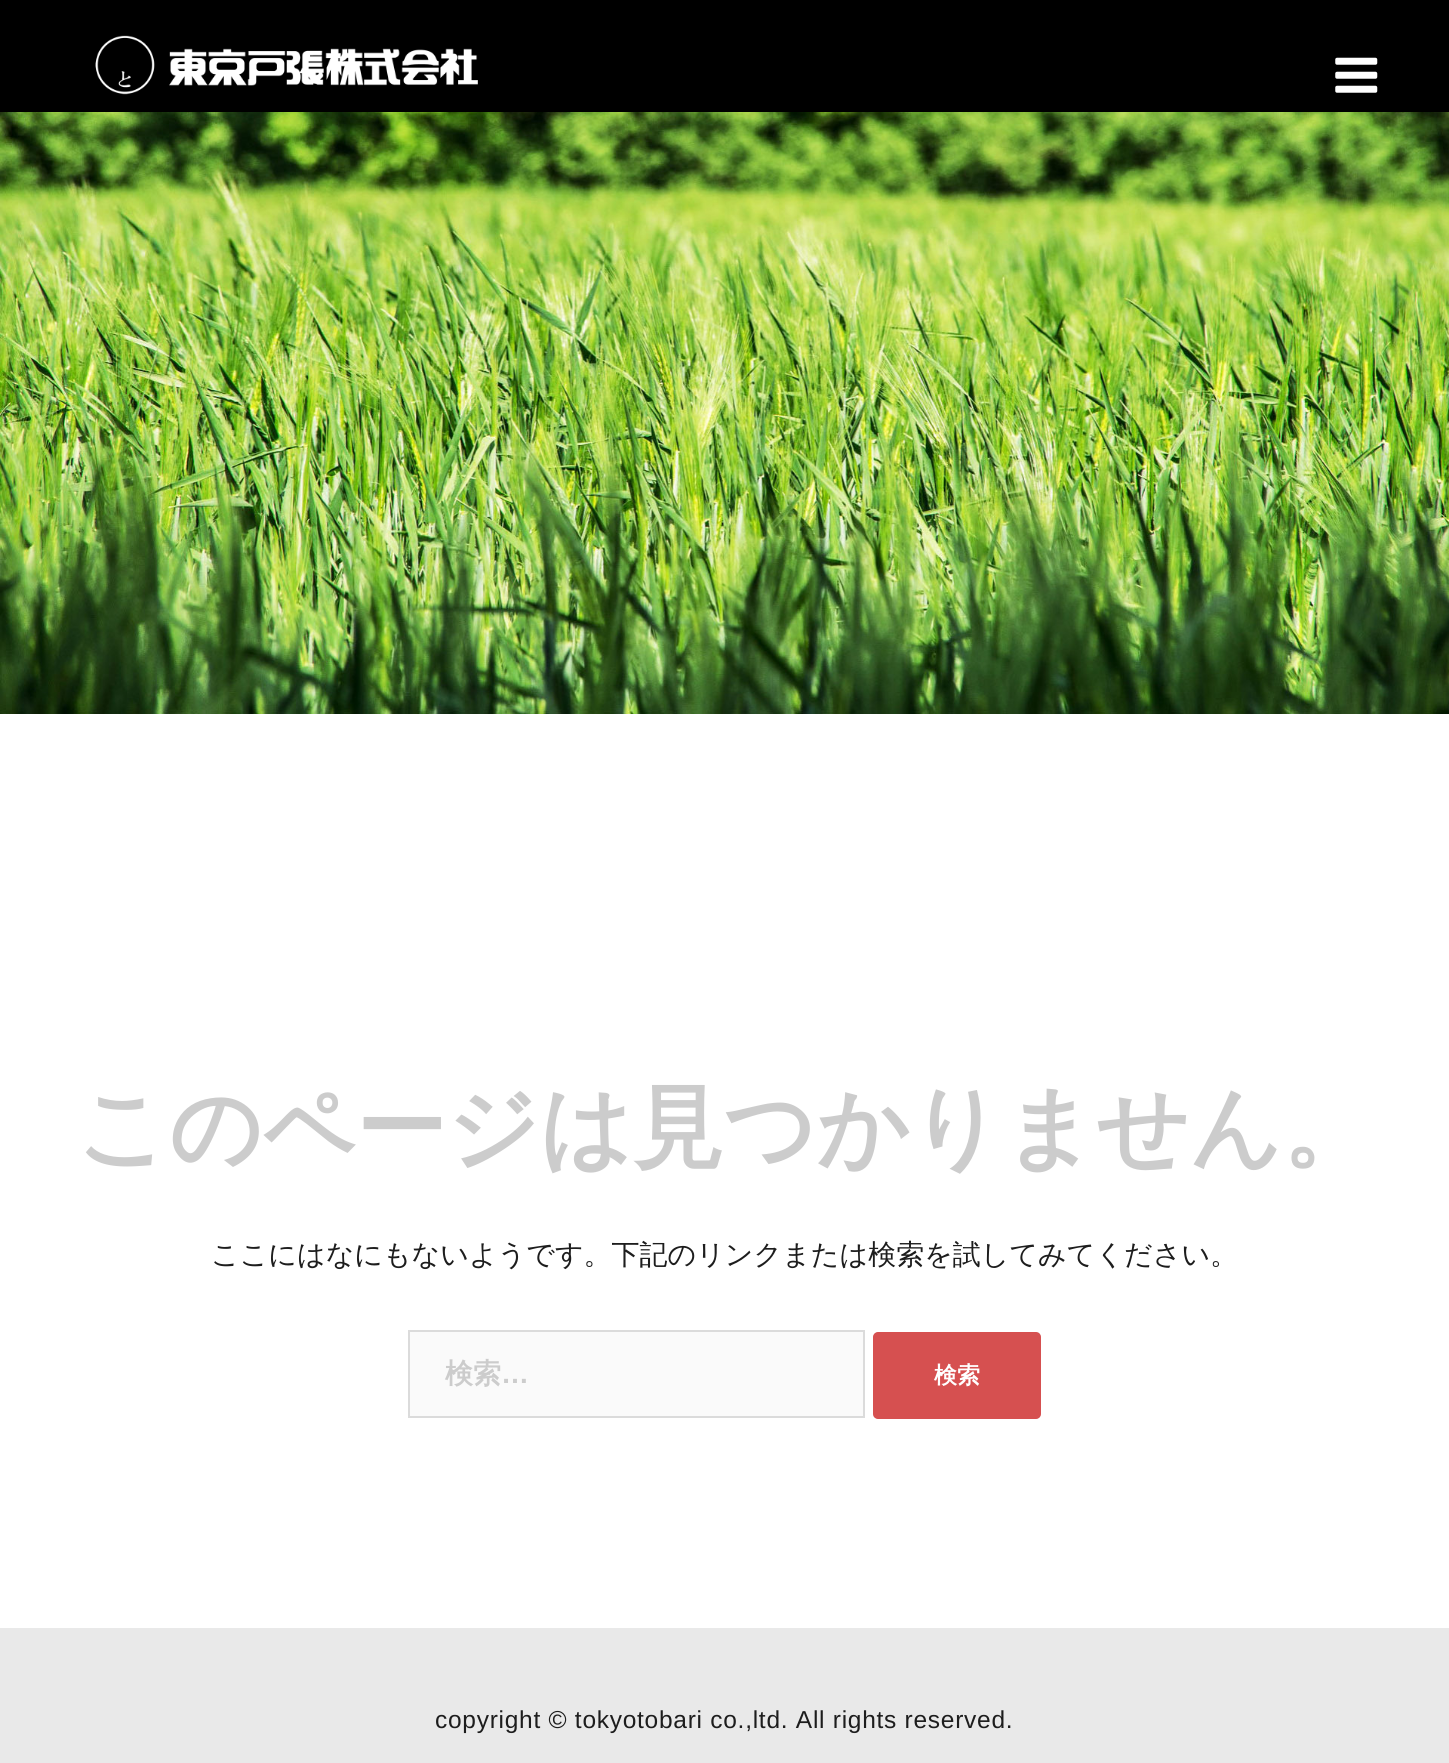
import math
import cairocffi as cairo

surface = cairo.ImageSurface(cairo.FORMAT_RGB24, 1449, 1763)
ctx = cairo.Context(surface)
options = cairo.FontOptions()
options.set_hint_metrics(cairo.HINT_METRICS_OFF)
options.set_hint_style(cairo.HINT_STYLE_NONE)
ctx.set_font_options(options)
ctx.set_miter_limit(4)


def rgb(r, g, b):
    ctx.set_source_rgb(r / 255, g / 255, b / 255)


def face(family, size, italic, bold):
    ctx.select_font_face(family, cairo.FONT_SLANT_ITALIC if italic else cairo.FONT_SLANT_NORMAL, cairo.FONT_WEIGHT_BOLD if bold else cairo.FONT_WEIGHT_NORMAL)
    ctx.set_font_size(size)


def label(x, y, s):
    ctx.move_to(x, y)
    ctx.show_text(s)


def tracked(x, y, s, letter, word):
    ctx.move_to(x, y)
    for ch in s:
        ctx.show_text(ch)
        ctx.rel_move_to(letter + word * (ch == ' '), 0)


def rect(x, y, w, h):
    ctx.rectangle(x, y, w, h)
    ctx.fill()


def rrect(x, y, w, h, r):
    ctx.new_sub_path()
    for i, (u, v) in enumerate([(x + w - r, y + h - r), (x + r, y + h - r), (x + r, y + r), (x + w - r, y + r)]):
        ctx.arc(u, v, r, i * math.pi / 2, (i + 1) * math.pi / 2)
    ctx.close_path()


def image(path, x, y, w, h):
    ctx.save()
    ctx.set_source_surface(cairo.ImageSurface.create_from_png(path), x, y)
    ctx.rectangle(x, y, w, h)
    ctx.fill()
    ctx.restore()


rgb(255, 255, 255)
ctx.paint()
rgb(0, 0, 0)
rect(0, 0, 1449, 112)
image('image0.png', 95, 35, 383, 60)
image('image1.png', 1335, 57, 43, 36)
image('image2.png', 0, 112, 1449, 602)
face('WenQuanYi Zen Hei', 91, 0, 1)
rgb(204, 204, 204)
label(76, 1159, 'このページは見つかりません。')
face('WenQuanYi Zen Hei Medium', 28, 0, 0)
rgb(29, 29, 29)
label(211, 1264, 'ここにはなにもないようです。下記のリンクまたは検索を試してみてください。')
rgb(250, 250, 250)
ctx.rectangle(409, 1331, 455, 86)
ctx.fill_preserve()
rgb(219, 219, 219)
ctx.stroke()
face('WenQuanYi Zen Hei', 28, 0, 1)
rgb(204, 204, 204)
label(445, 1383, '検索')
face('Liberation Sans', 28, 0, 1)
label(501, 1383, '…')
rgb(214, 80, 80)
rrect(874, 1333, 166, 85, 4)
ctx.fill_preserve()
ctx.stroke()
face('WenQuanYi Zen Hei', 23, 0, 1)
rgb(255, 255, 255)
label(934, 1383, '検索')
rgb(233, 233, 233)
rect(0, 1628, 1449, 135)
face('Liberation Sans', 24.5, 0, 0)
rgb(29, 29, 29)
tracked(435, 1728, 'copyright © tokyotobari co.,ltd. All rights reserved.', 0.73, 0)
surface.write_to_png('render.png')
